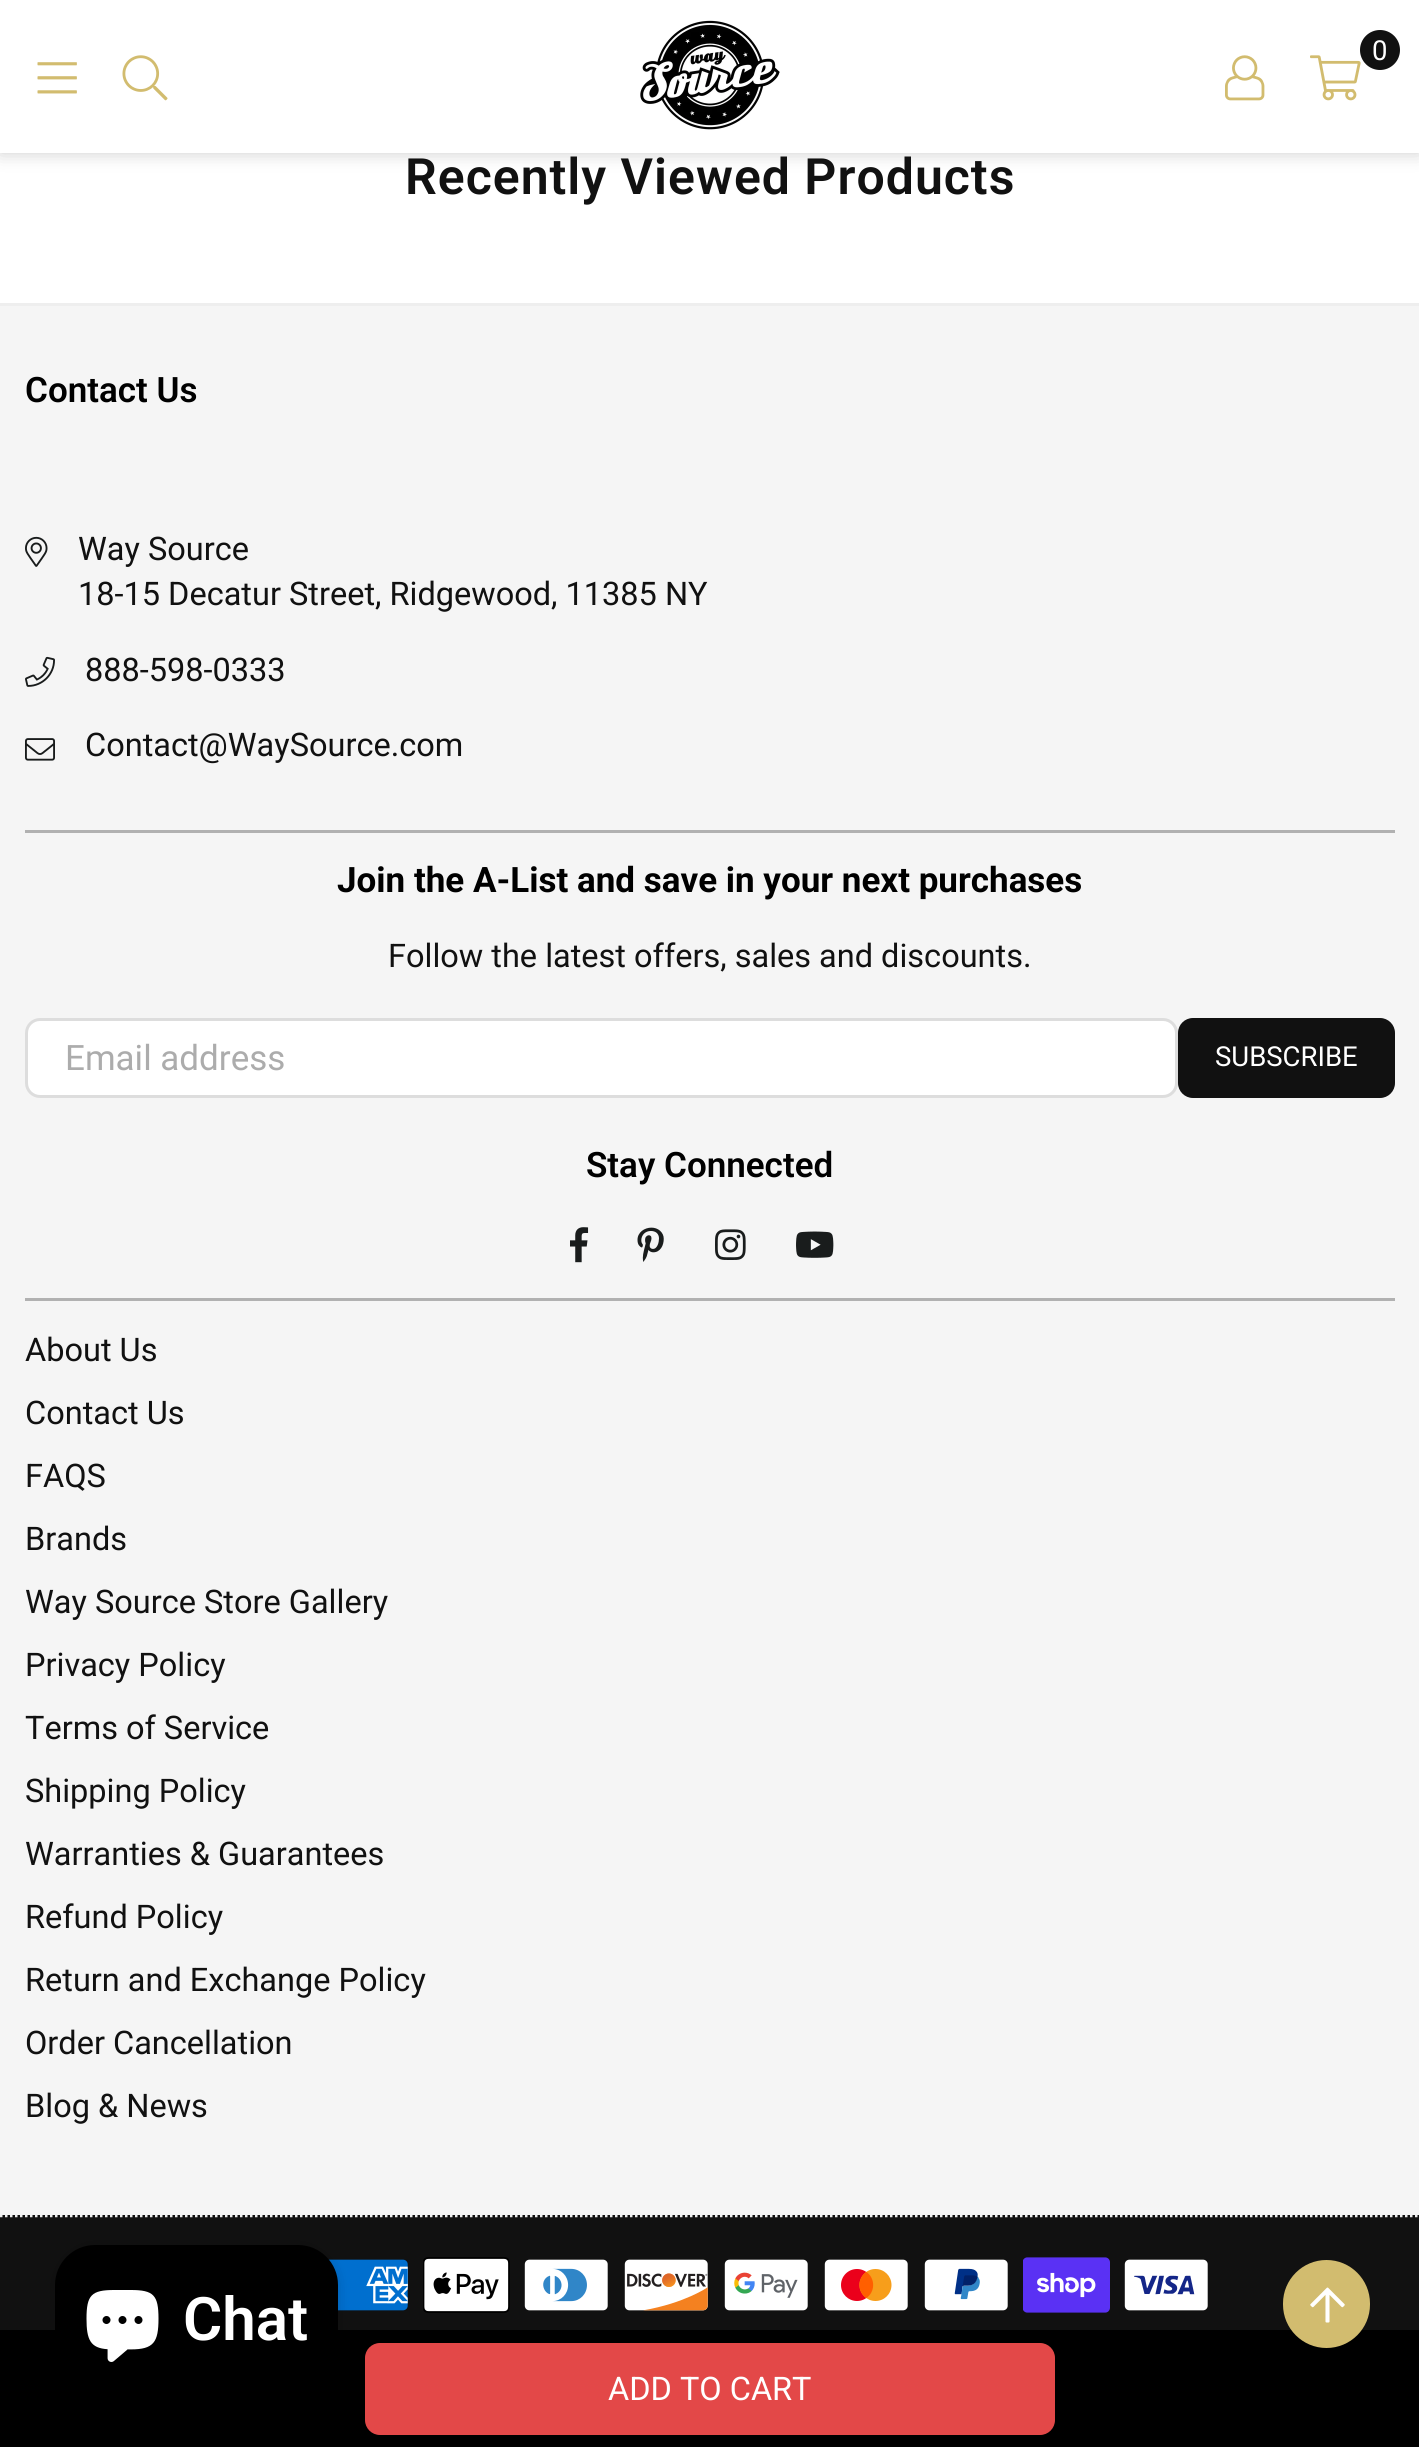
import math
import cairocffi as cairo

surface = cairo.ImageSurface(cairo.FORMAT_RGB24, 1419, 2447)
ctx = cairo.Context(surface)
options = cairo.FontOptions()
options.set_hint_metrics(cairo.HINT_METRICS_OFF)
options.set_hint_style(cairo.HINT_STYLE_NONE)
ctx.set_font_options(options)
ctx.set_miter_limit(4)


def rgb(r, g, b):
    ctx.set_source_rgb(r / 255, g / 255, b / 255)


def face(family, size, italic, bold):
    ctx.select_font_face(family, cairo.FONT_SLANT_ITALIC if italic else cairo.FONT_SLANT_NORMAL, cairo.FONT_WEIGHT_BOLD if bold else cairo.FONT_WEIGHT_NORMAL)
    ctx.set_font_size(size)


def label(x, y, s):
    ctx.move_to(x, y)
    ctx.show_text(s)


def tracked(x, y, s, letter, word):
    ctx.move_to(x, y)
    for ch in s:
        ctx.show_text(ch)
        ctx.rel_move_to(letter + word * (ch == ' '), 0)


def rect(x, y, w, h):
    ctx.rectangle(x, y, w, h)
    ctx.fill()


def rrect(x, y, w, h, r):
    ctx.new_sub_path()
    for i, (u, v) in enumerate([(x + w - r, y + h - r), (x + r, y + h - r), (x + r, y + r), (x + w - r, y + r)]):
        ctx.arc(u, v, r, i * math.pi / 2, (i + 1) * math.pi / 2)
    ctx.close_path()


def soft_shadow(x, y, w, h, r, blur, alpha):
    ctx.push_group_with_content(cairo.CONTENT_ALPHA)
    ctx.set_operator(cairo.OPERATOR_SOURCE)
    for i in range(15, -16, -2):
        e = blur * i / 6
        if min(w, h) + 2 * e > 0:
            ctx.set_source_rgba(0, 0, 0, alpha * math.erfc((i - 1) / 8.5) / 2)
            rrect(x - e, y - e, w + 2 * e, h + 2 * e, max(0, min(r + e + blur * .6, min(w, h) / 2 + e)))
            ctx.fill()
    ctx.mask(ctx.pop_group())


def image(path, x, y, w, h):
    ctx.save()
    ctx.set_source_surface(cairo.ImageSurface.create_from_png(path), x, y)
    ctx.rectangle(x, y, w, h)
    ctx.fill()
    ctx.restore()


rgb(255, 255, 255)
ctx.paint()
rgb(0, 0, 0)
soft_shadow(0, 0, 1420, 153, 0, 9, 0.2)
rgb(255, 255, 255)
rect(0, 0, 1419, 153)
image('image0.png', 640, 20, 140, 110)
image('image1.png', 1310, 55, 51, 46)
rgb(17, 17, 17)
ctx.arc(1380, 50, 20, 0, 2 * math.pi)
ctx.fill()
face('Roboto', 27.5, 0, 0)
rgb(255, 255, 255)
label(1372, 60, '0')
image('image2.png', 1225, 55, 40, 46)
image('image3.png', 37, 62, 40, 32)
image('image4.png', 122, 55, 46, 46)
face('Roboto SemiBold', 50, 0, 0)
rgb(17, 17, 17)
tracked(405, 194, 'Recently Viewed Products', 1, 0)
rgb(0, 0, 0)
rect(0, 2330, 1419, 117)
rgb(227, 72, 72)
rrect(365, 2343, 690, 92, 15)
ctx.fill()
face('Roboto', 32.5, 0, 0)
rgb(255, 255, 255)
label(608, 2400, 'ADD TO CART')
rgb(245, 245, 245)
rect(0, 306, 1419, 1909)
rgb(238, 238, 238)
rect(0, 303, 1419, 3)
face('Roboto SemiBold', 35, 0, 0)
rgb(0, 0, 0)
label(25, 402, 'Contact Us')
image('image5.png', 25, 536, 23, 31)
face('Roboto', 32.5, 0, 0)
rgb(17, 17, 17)
label(78, 560, 'Way Source')
label(78, 605, '18-15 Decatur Street, Ridgewood, 11385 NY')
image('image6.png', 25, 656, 30, 31)
label(85, 681, '888-598-0333')
image('image7.png', 25, 738, 30, 23)
label(85, 756, 'Contact@WaySource.com')
rgb(177, 177, 177)
rect(25, 830, 1370, 3)
face('Roboto', 35, 0, 1)
rgb(0, 0, 0)
label(337, 892, 'Join the A-List and save in your next purchases')
face('Roboto', 32.5, 0, 0)
rgb(17, 17, 17)
label(388, 967, 'Follow the latest offers, sales and discounts.')
rgb(255, 255, 255)
rrect(26.5, 1019.5, 1150, 77, 13.5)
ctx.fill_preserve()
rgb(221, 221, 221)
ctx.set_line_width(3)
ctx.stroke()
face('Roboto', 35, 0, 0)
rgb(172, 172, 172)
label(65, 1070, 'Email address')
rgb(17, 17, 17)
rrect(1178, 1018, 217, 80, 15)
ctx.fill()
face('Roboto', 27.5, 0, 0)
rgb(255, 255, 255)
label(1215, 1066, 'SUBSCRIBE')
face('Roboto SemiBold', 35, 0, 0)
rgb(0, 0, 0)
label(586, 1177, 'Stay Connected')
image('image8.png', 570, 1227, 19, 36)
image('image9.png', 637, 1227, 27, 35)
image('image10.png', 715, 1229, 31, 31)
image('image11.png', 796, 1231, 38, 27)
rgb(177, 177, 177)
rect(25, 1298, 1370, 3)
face('Roboto', 32.5, 0, 0)
rgb(17, 17, 17)
label(25, 1361, 'About Us')
label(25, 1424, 'Contact Us')
label(25, 1487, 'FAQS')
label(25, 1550, 'Brands')
label(25, 1613, 'Way Source Store Gallery')
label(25, 1676, 'Privacy Policy')
label(25, 1739, 'Terms of Service')
label(25, 1802, 'Shipping Policy')
label(25, 1865, 'Warranties & Guarantees')
label(25, 1928, 'Refund Policy')
label(25, 1991, 'Return and Exchange Policy')
label(25, 2054, 'Order Cancellation')
label(25, 2117, 'Blog & News')
rect(0, 2215, 1419, 115)
ctx.new_path()
ctx.move_to(0, 2216)
ctx.line_to(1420, 2216)
rgb(238, 238, 238)
ctx.set_line_width(2.5)
ctx.set_dash([2.5, 2.5])
ctx.stroke()
image('image12.png', 328, 2259, 80, 52)
image('image13.png', 423, 2257, 87, 56)
image('image14.png', 524, 2259, 84, 52)
image('image15.png', 624, 2259, 84, 52)
image('image16.png', 724, 2259, 84, 52)
image('image17.png', 824, 2259, 84, 52)
image('image18.png', 924, 2259, 84, 52)
image('image19.png', 1023, 2257, 87, 56)
image('image20.png', 1124, 2259, 84, 52)
rgb(0, 0, 0)
soft_shadow(55, 2245, 283, 150, 40, 6, 0.15)
rgb(0, 0, 0)
rrect(55, 2245, 283, 150, 40)
ctx.fill()
image('image21.png', 86, 2290, 73, 72)
face('Roboto SemiBold', 60, 0, 0)
rgb(255, 255, 255)
label(183, 2340, 'Chat')
rgb(210, 188, 111)
rrect(1283, 2260, 87, 88, 43.5)
ctx.fill()
image('image22.png', 1310, 2287, 35, 36)
surface.write_to_png('render.png')
